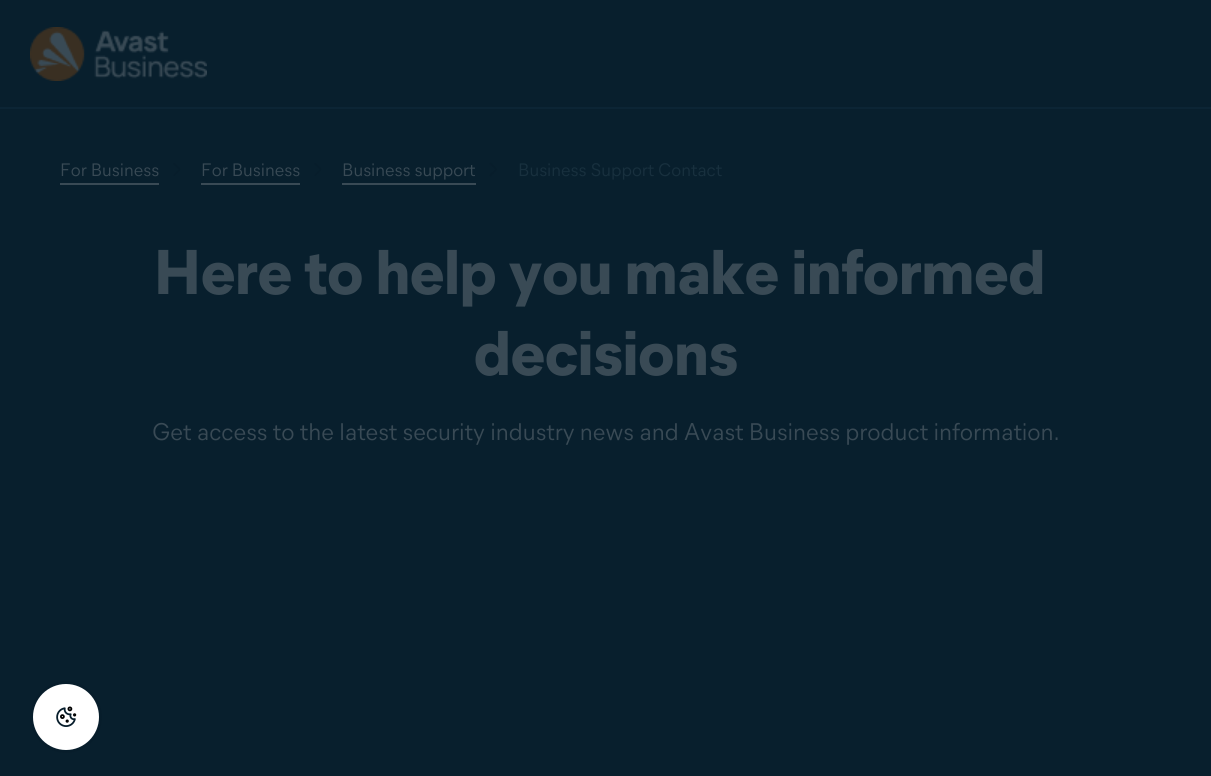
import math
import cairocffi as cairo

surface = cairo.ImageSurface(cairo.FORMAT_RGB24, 1211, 776)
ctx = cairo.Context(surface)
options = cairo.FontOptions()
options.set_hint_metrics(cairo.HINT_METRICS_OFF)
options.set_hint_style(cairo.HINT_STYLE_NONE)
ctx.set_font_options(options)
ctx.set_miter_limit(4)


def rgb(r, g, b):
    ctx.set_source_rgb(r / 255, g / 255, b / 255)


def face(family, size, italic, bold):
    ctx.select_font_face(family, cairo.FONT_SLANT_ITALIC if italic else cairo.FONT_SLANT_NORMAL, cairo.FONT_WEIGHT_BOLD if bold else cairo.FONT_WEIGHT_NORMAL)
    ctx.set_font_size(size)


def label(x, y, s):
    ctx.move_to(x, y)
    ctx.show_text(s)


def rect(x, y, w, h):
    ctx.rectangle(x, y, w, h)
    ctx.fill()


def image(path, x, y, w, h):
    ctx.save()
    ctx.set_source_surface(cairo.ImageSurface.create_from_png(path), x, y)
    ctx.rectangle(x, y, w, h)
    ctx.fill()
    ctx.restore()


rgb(8, 31, 45)
ctx.paint()
image('image0.png', 30, 27, 177, 54)
rgb(12, 37, 53)
rect(0, 107, 1211, 2)
rgb(57, 74, 85)
rect(60, 183, 99, 2)
face('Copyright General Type', 18, 0, 0)
label(60, 176, 'For Business')
image('image1.png', 173, 163, 8, 13)
rect(201, 183, 99, 2)
label(201, 176, 'For Business')
image('image1.png', 314, 163, 8, 13)
rect(342, 183, 134, 2)
label(342, 176, 'Business support')
image('image2.png', 489, 162, 8, 15)
rgb(24, 48, 62)
label(518, 176, 'Business Support Contact')
face('Copyright General Type', 63, 0, 1)
rgb(57, 74, 85)
label(154, 294, 'Here to help you make informed')
label(474, 375, 'decisions')
face('Copyright General Type', 24, 0, 0)
label(152, 440, 'Get access to the latest security industry news and Avast Business product information.')
rgb(255, 255, 255)
ctx.new_path()
ctx.arc(66, 717, 34.5, 0, 2 * math.pi)
ctx.fill_preserve()
rgb(7, 29, 43)
ctx.set_line_width(3)
ctx.stroke()
image('image3.png', 56, 706, 21, 21)
surface.write_to_png('render.png')
